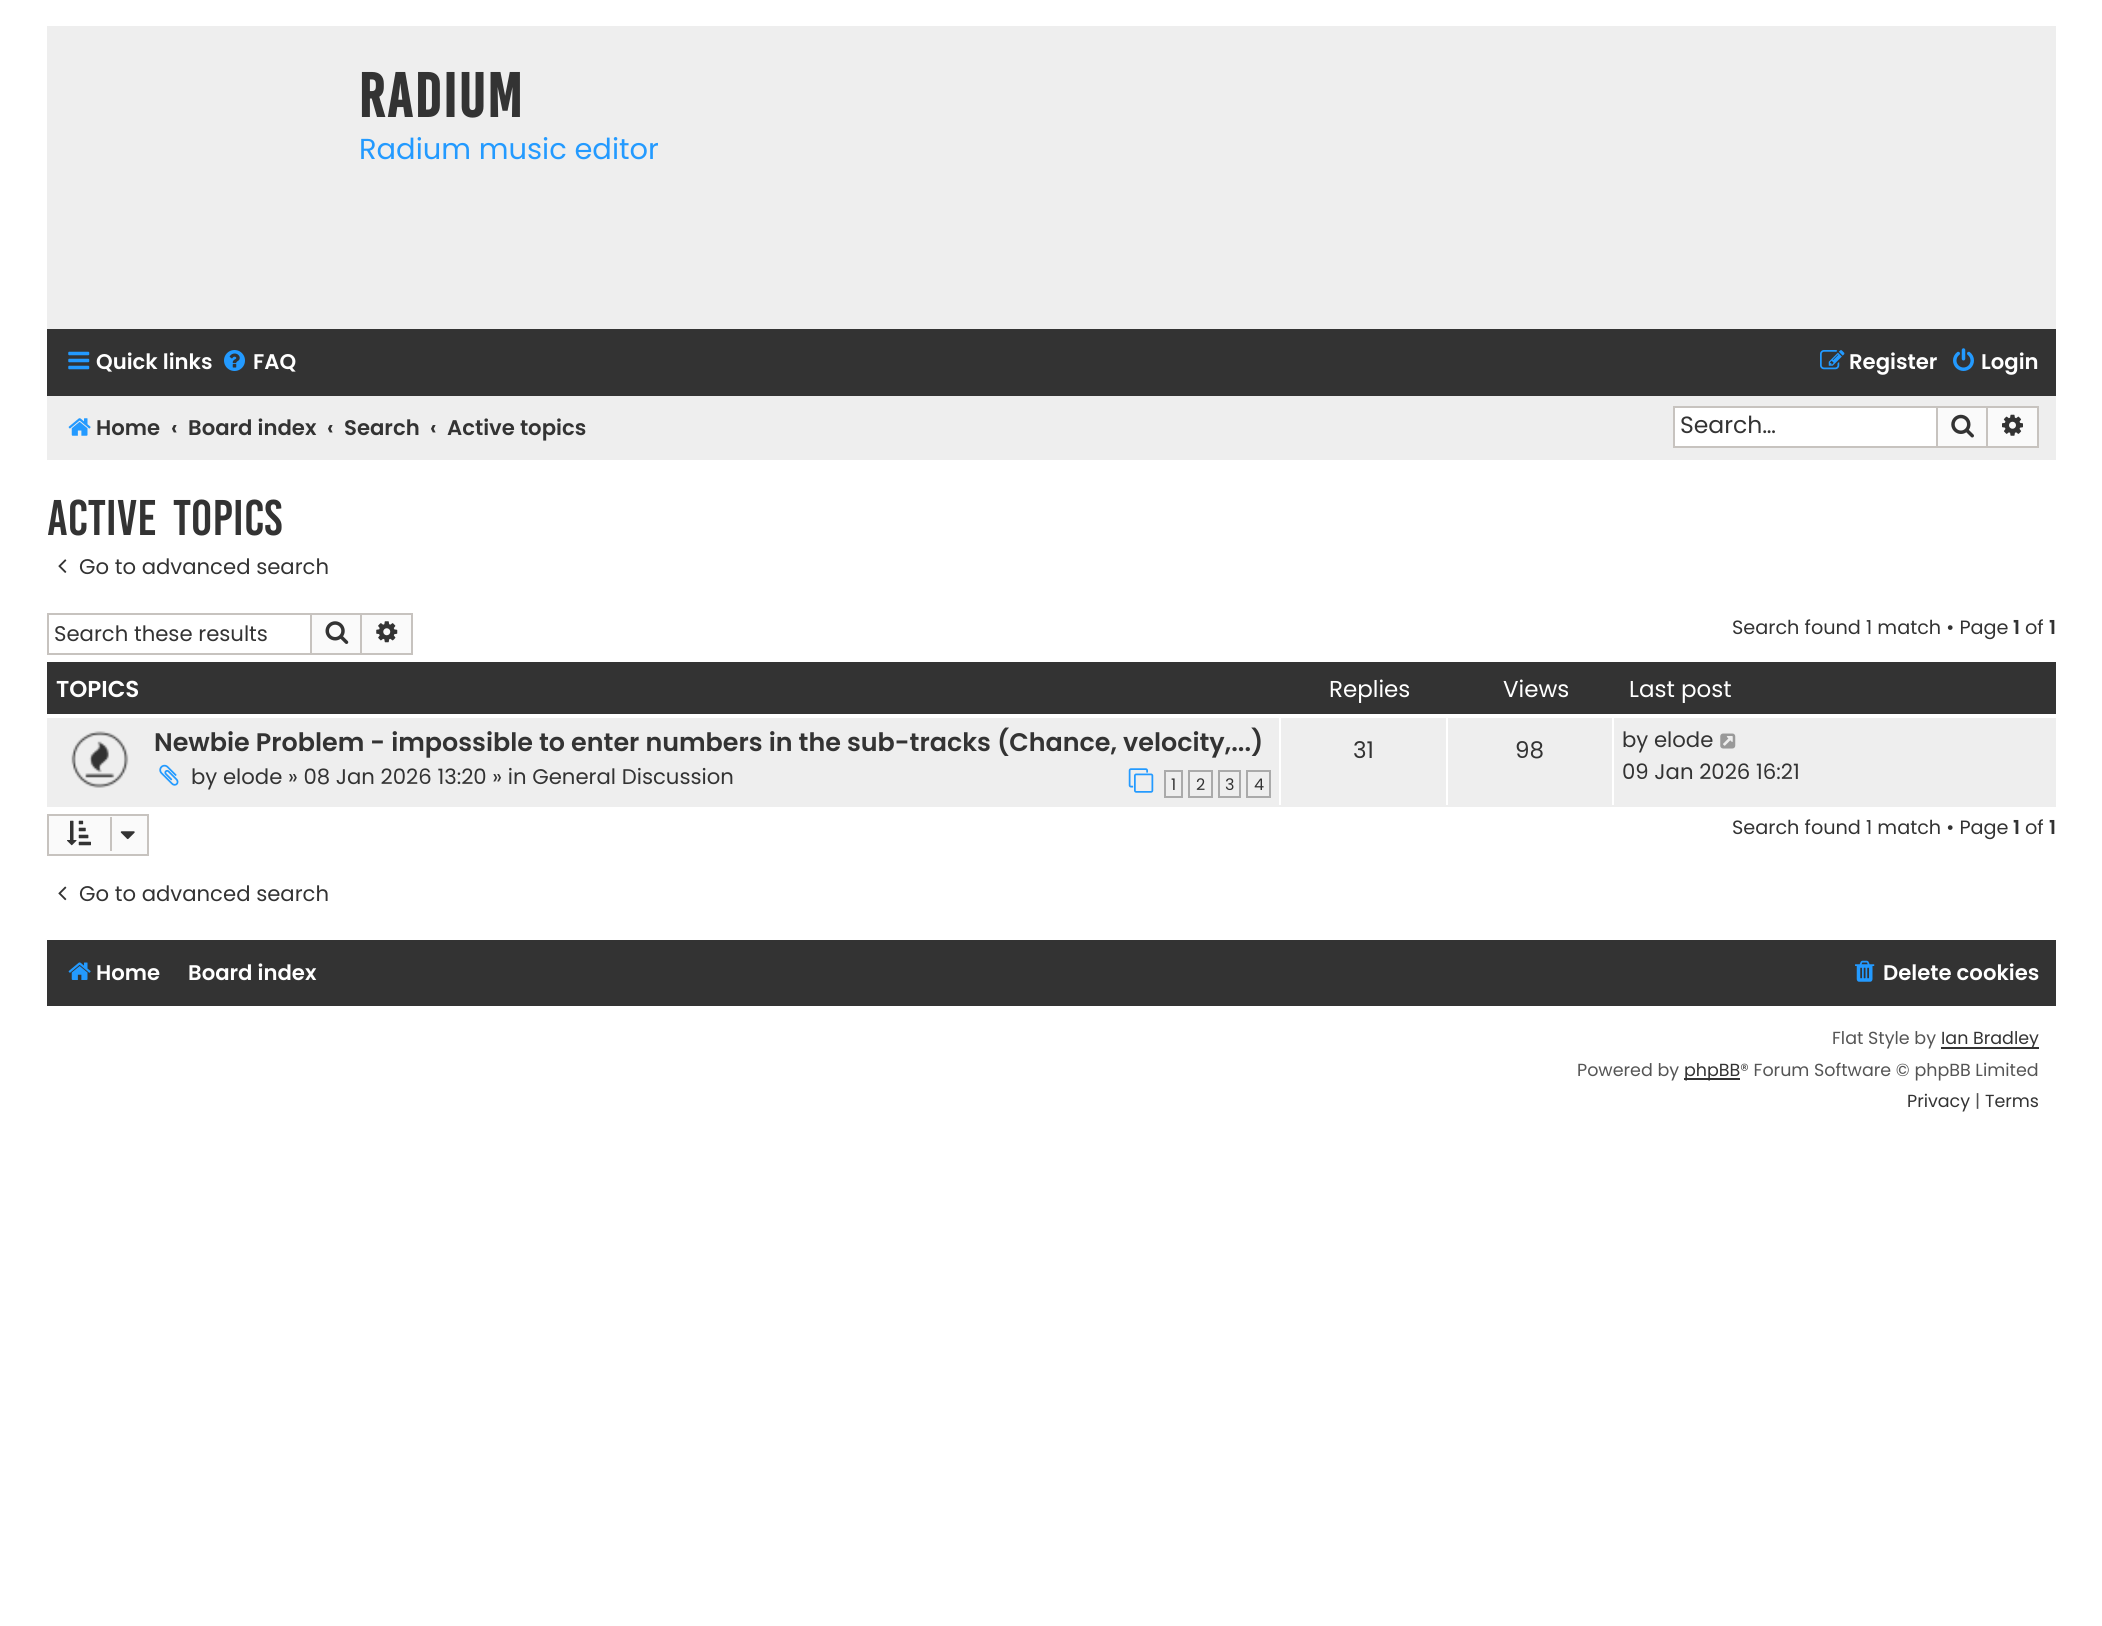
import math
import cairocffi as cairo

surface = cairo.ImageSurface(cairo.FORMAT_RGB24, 2102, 1626)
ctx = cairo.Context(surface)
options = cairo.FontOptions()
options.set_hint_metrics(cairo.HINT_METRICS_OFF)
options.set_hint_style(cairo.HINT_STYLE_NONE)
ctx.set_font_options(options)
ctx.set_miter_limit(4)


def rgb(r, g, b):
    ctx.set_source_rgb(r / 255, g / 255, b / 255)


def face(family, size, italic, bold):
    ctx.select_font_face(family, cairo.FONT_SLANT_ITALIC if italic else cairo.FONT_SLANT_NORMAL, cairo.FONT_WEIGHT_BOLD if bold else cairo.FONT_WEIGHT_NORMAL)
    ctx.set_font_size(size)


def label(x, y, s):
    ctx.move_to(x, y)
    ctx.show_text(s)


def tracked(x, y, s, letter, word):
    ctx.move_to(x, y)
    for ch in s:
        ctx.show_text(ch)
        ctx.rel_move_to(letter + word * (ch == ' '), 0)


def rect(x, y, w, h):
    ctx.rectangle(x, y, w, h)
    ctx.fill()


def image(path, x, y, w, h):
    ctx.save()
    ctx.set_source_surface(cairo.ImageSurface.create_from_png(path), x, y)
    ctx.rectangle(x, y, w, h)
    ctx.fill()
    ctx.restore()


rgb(255, 255, 255)
ctx.paint()
rgb(238, 238, 238)
rect(47, 26, 2009, 303)
face('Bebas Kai', 48, 0, 1)
rgb(51, 51, 51)
tracked(359, 117, 'Radium', 1.75, 0)
face('Poppins', 28.9, 0, 0)
rgb(35, 154, 255)
label(359, 159, 'Radium music editor')
rgb(51, 51, 51)
rect(47, 329, 2009, 67)
image('image0.png', 68, 351, 22, 19)
face('Poppins SemiBold', 21.2, 0, 0)
rgb(255, 255, 255)
label(96, 369, 'Quick links')
image('image1.png', 224, 350, 21, 21)
label(253, 369, 'FAQ')
image('image2.png', 1820, 350, 25, 20)
label(1849, 369, 'Register')
image('image3.png', 1953, 348, 21, 23)
label(1981, 369, 'Login')
rgb(238, 238, 238)
rect(47, 396, 2009, 64)
image('image4.png', 68, 418, 23, 18)
rgb(51, 51, 51)
label(96, 435, 'Home')
label(171, 435, '‹')
label(188, 435, 'Board index')
label(327, 435, '‹')
label(344, 435, 'Search')
label(430, 435, '‹')
label(447, 435, 'Active topics')
rgb(255, 255, 255)
rect(1675, 408, 261, 38)
rgb(199, 195, 191)
rect(1673, 406, 263, 2)
rect(1673, 446, 263, 2)
rect(1673, 406, 2, 42)
face('Poppins', 23.5, 0, 0)
rgb(51, 51, 51)
label(1680, 433, 'Search…')
rgb(250, 250, 250)
ctx.rectangle(1937, 407, 50, 40)
ctx.fill_preserve()
rgb(199, 195, 191)
ctx.stroke()
image('image5.png', 1951, 414, 23, 24)
rgb(250, 250, 250)
rect(1988, 408, 49, 38)
rgb(199, 195, 191)
rect(1988, 406, 51, 2)
rect(2037, 406, 2, 42)
rect(1988, 446, 51, 2)
image('image6.png', 2002, 414, 21, 22)
face('Bebas Kai', 38.5, 0, 0)
rgb(51, 51, 51)
tracked(47, 535, 'Active topics', 0, 7)
image('image7.png', 58, 559, 9, 14)
face('Poppins', 21.2, 0, 0)
label(79, 574, 'Go to advanced search')
rgb(199, 195, 191)
rect(47, 613, 263, 2)
rect(47, 653, 263, 2)
rect(47, 613, 2, 42)
rgb(51, 51, 51)
label(54, 641, 'Search these results')
rgb(250, 250, 250)
ctx.rectangle(311, 614, 50, 40)
ctx.fill_preserve()
rgb(199, 195, 191)
ctx.stroke()
image('image8.png', 325, 621, 24, 23)
rgb(250, 250, 250)
rect(362, 615, 49, 38)
rgb(199, 195, 191)
rect(362, 613, 51, 2)
rect(411, 613, 2, 42)
rect(362, 653, 51, 2)
image('image9.png', 376, 621, 22, 22)
face('Poppins', 19.25, 0, 0)
rgb(51, 51, 51)
label(1732, 634, 'Search found 1 match • Page')
face('Poppins SemiBold', 19.25, 0, 0)
label(2013, 634, '1')
face('Poppins', 19.25, 0, 0)
label(2025, 634, 'of')
face('Poppins SemiBold', 19.25, 0, 0)
label(2049, 634, '1')
rect(47, 662, 2009, 52)
face('Poppins SemiBold', 23, 0, 0)
rgb(255, 255, 255)
label(56, 697, 'TOPICS')
face('Poppins', 23, 0, 0)
label(1329, 697, 'Replies')
label(1503, 697, 'Views')
label(1629, 697, 'Last post')
rgb(238, 238, 238)
rect(47, 718, 2009, 89)
image('image10.png', 71, 731, 58, 57)
face('Poppins SemiBold', 25.4, 0, 0)
rgb(51, 51, 51)
label(154, 751, 'Newbie Problem - impossible to enter numbers in the sub-tracks (Chance, velocity,...)')
image('image11.png', 159, 764, 20, 22)
face('Poppins', 21.2, 0, 0)
label(191, 784, 'by elode » 08 Jan 2026 13:20 » in General Discussion')
image('image12.png', 1128, 768, 26, 25)
ctx.rectangle(1165, 771, 17, 26)
rgb(170, 170, 170)
ctx.stroke()
face('Poppins', 16, 0, 0)
rgb(51, 51, 51)
label(1171, 790, '1')
ctx.rectangle(1189, 771, 23, 26)
rgb(170, 170, 170)
ctx.stroke()
rgb(51, 51, 51)
label(1196, 790, '2')
ctx.rectangle(1219, 771, 21, 26)
rgb(170, 170, 170)
ctx.stroke()
rgb(51, 51, 51)
label(1225, 790, '3')
ctx.rectangle(1247, 771, 23, 26)
rgb(170, 170, 170)
ctx.stroke()
rgb(51, 51, 51)
label(1254, 790, '4')
rgb(255, 255, 255)
rect(1279, 718, 2, 87)
face('Poppins', 23, 0, 0)
rgb(51, 51, 51)
label(1353, 758, '31')
rgb(255, 255, 255)
rect(1446, 718, 2, 87)
rgb(51, 51, 51)
label(1515, 758, '98')
rgb(255, 255, 255)
rect(1612, 718, 2, 87)
face('Poppins', 21.2, 0, 0)
rgb(51, 51, 51)
label(1622, 747, 'by elode')
image('image13.png', 1720, 733, 16, 16)
label(1622, 779, '09 Jan 2026 16:21')
rgb(250, 250, 250)
ctx.rectangle(48, 815, 100, 40)
ctx.fill_preserve()
rgb(199, 195, 191)
ctx.stroke()
image('image14.png', 67, 820, 24, 26)
rect(110, 817, 2, 34)
image('image15.png', 120, 831, 15, 9)
face('Poppins', 19.25, 0, 0)
rgb(51, 51, 51)
label(1732, 834, 'Search found 1 match • Page')
face('Poppins SemiBold', 19.25, 0, 0)
label(2013, 834, '1')
face('Poppins', 19.25, 0, 0)
label(2025, 834, 'of')
face('Poppins SemiBold', 19.25, 0, 0)
label(2049, 834, '1')
image('image16.png', 58, 886, 9, 15)
face('Poppins', 21.2, 0, 0)
label(79, 901, 'Go to advanced search')
rect(47, 940, 2009, 66)
image('image17.png', 68, 962, 23, 18)
face('Poppins SemiBold', 21.2, 0, 0)
rgb(255, 255, 255)
label(96, 980, 'Home')
label(188, 980, 'Board index')
image('image18.png', 1855, 960, 20, 22)
label(1883, 980, 'Delete cookies')
face('Poppins', 17.5, 0, 0)
rgb(85, 85, 85)
label(1832, 1044, 'Flat Style by')
rgb(51, 51, 51)
rect(1941, 1047, 98, 2)
label(1941, 1044, 'Ian Bradley')
rgb(85, 85, 85)
label(1577, 1076, 'Powered by')
rgb(51, 51, 51)
rect(1684, 1078, 56, 2)
label(1684, 1076, 'phpBB')
rgb(85, 85, 85)
label(1740, 1076, '® Forum Software © phpBB Limited')
rgb(51, 51, 51)
label(1907, 1107, 'Privacy')
rgb(85, 85, 85)
label(1975, 1107, '|')
rgb(51, 51, 51)
label(1985, 1107, 'Terms')
surface.write_to_png('render.png')
